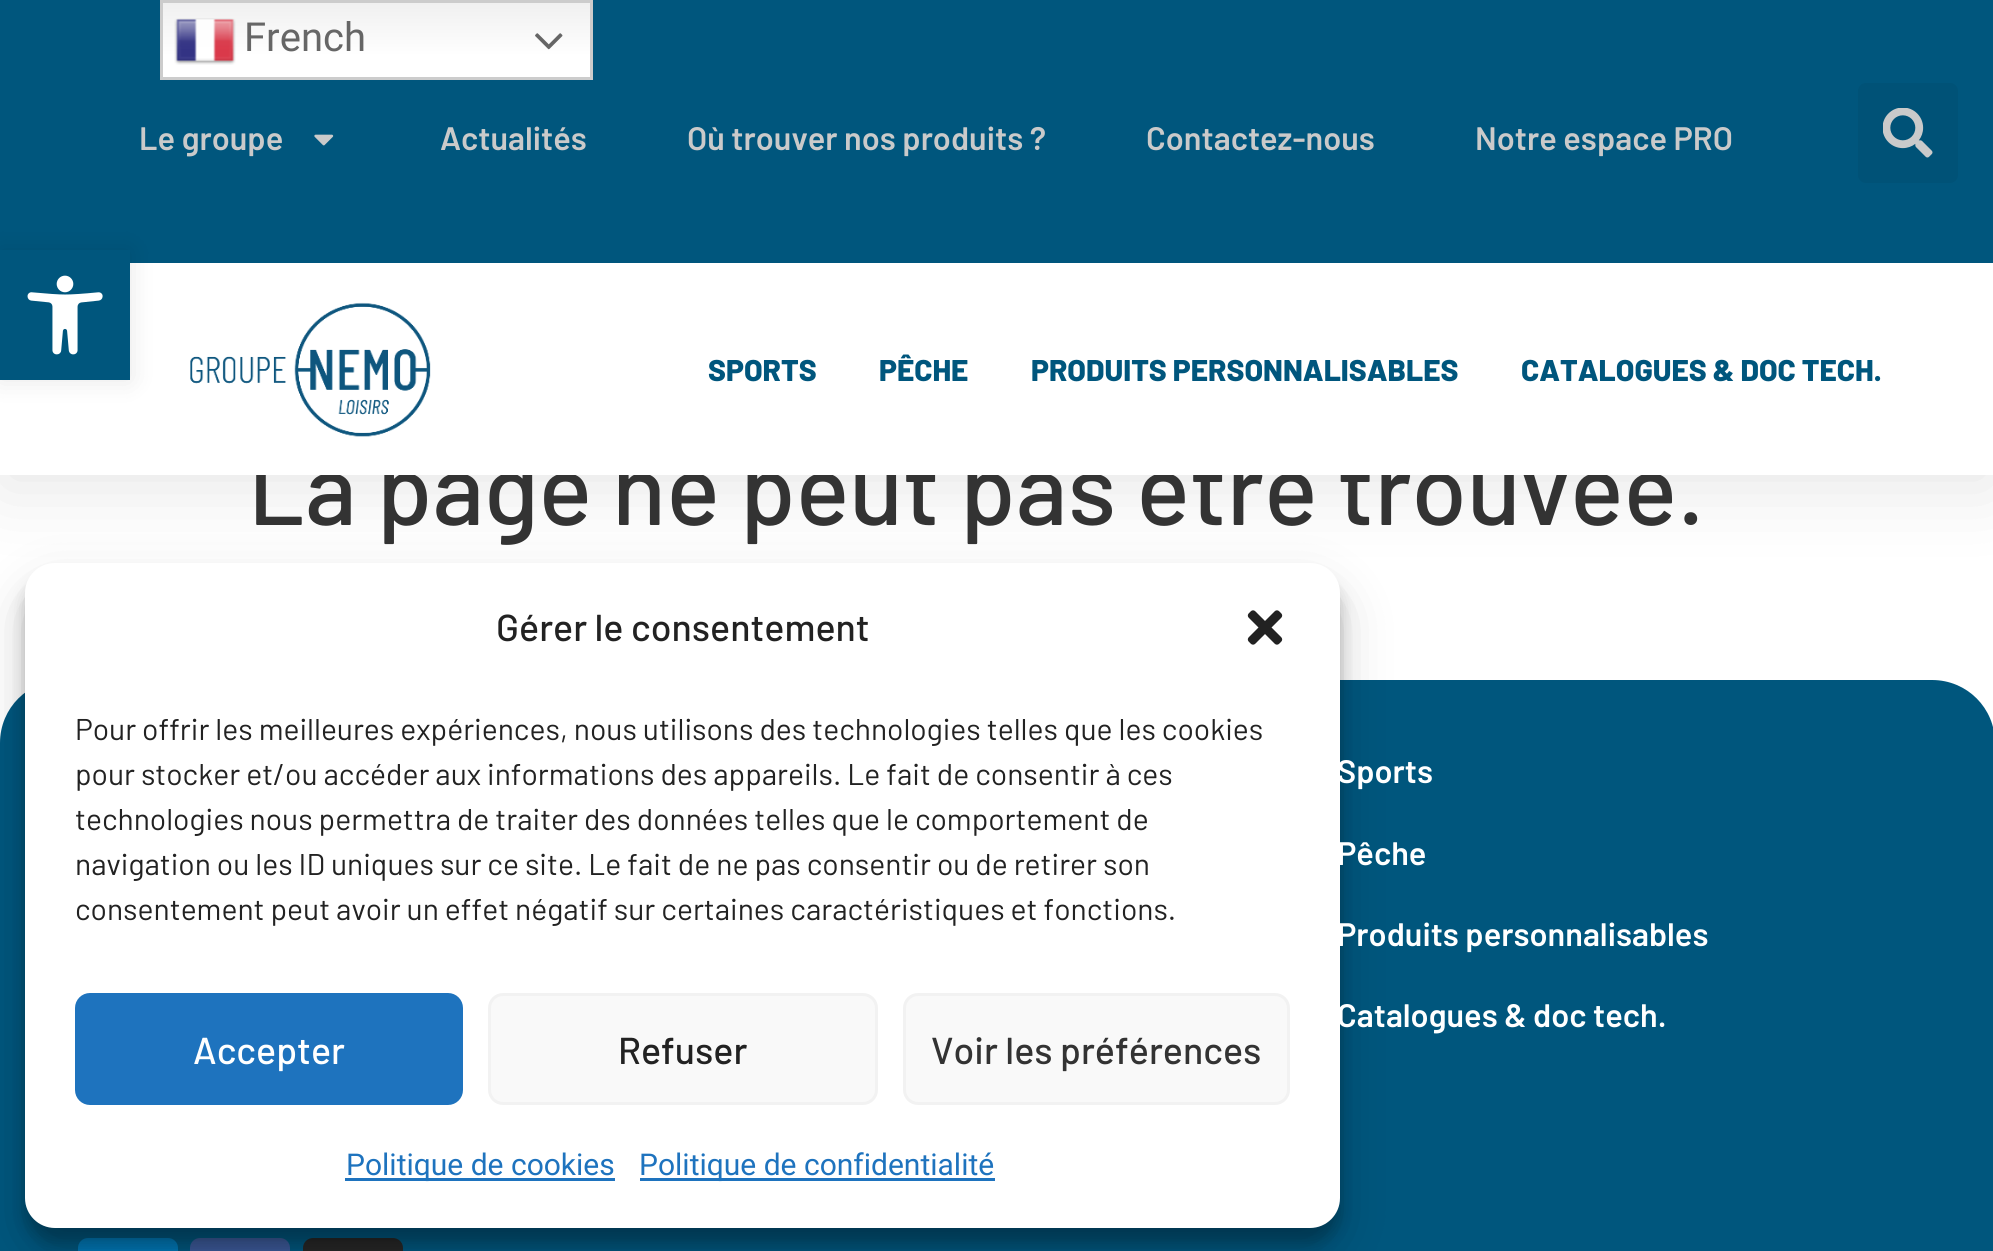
import math
import cairocffi as cairo

surface = cairo.ImageSurface(cairo.FORMAT_RGB24, 1993, 1251)
ctx = cairo.Context(surface)
options = cairo.FontOptions()
options.set_hint_metrics(cairo.HINT_METRICS_OFF)
options.set_hint_style(cairo.HINT_STYLE_NONE)
ctx.set_font_options(options)
ctx.set_miter_limit(4)


def rgb(r, g, b):
    ctx.set_source_rgb(r / 255, g / 255, b / 255)


def face(family, size, italic, bold):
    ctx.select_font_face(family, cairo.FONT_SLANT_ITALIC if italic else cairo.FONT_SLANT_NORMAL, cairo.FONT_WEIGHT_BOLD if bold else cairo.FONT_WEIGHT_NORMAL)
    ctx.set_font_size(size)


def label(x, y, s):
    ctx.move_to(x, y)
    ctx.show_text(s)


def rect(x, y, w, h):
    ctx.rectangle(x, y, w, h)
    ctx.fill()


def rrect(x, y, w, h, r):
    ctx.new_sub_path()
    for i, (u, v) in enumerate([(x + w - r, y + h - r), (x + r, y + h - r), (x + r, y + r), (x + w - r, y + r)]):
        ctx.arc(u, v, r, i * math.pi / 2, (i + 1) * math.pi / 2)
    ctx.close_path()


def soft_shadow(x, y, w, h, r, blur, alpha):
    ctx.push_group_with_content(cairo.CONTENT_ALPHA)
    ctx.set_operator(cairo.OPERATOR_SOURCE)
    for i in range(15, -16, -2):
        e = blur * i / 6
        if min(w, h) + 2 * e > 0:
            ctx.set_source_rgba(0, 0, 0, alpha * math.erfc((i - 1) / 8.5) / 2)
            rrect(x - e, y - e, w + 2 * e, h + 2 * e, max(0, min(r + e + blur * .6, min(w, h) / 2 + e)))
            ctx.fill()
    ctx.mask(ctx.pop_group())


def image(path, x, y, w, h):
    ctx.save()
    ctx.set_source_surface(cairo.ImageSurface.create_from_png(path), x, y)
    ctx.rectangle(x, y, w, h)
    ctx.fill()
    ctx.restore()


rgb(255, 255, 255)
ctx.paint()
rgb(0, 0, 0)
soft_shadow(0, 13, 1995, 475, 0, 37.5, 0.1)
rgb(0, 86, 125)
rect(0, 0, 1993, 263)
gradient = cairo.LinearGradient(376, 0, 376, 80)
gradient.add_color_stop_rgba(0, 0.937, 0.937, 0.937, 1)
gradient.add_color_stop_rgba(0.7, 1, 1, 1, 1)
ctx.set_source(gradient)
rect(163, 3, 427, 74)
ctx.rectangle(161.5, 1.5, 430, 77)
rgb(204, 204, 204)
ctx.set_line_width(3)
ctx.stroke()
image('image0.png', 174, 18, 62, 47)
face('Roboto', 40, 0, 0)
rgb(102, 102, 102)
label(244, 51, 'French')
image('image1.png', 535, 33, 28, 17)
face('Barlow Medium', 100, 0, 0)
rgb(51, 51, 51)
label(248, 525, 'La page ne peut pas être trouvée.')
rgb(255, 255, 255)
rect(0, 263, 1993, 212)
rgb(0, 0, 0)
soft_shadow(0, 250, 130, 130, 0, 12.5, 0.1)
rgb(0, 86, 125)
rect(0, 250, 130, 130)
image('image2.png', 27, 275, 76, 80)
face('Barlow SemiBold', 32.5, 0, 0)
rgb(202, 202, 202)
label(139, 150, 'Le groupe')
image('image3.png', 314, 134, 20, 12)
label(440, 150, 'Actualités')
label(687, 150, 'Où trouver nos produits ?')
label(1146, 150, 'Contactez-nous')
label(1475, 150, 'Notre espace PRO')
rgb(0, 82, 119)
rrect(1858, 83, 100, 100, 8)
ctx.fill()
image('image4.png', 1883, 108, 50, 50)
image('image5.png', 190, 302, 241, 135)
face('Barlow ExtraBold', 30, 0, 0)
rgb(0, 86, 125)
label(708, 381, 'SPORTS')
label(879, 381, 'PÊCHE')
label(1031, 381, 'PRODUITS PERSONNALISABLES')
label(1521, 381, 'CATALOGUES & DOC TECH.')
ctx.new_path()
ctx.move_to(63, 680)
ctx.line_to(1932, 680)
ctx.curve_to(1967, 680, 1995, 708, 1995, 743)
ctx.line_to(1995, 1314)
ctx.line_to(0, 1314)
ctx.line_to(0, 743)
ctx.curve_to(0, 708, 28, 680, 63, 680)
ctx.close_path()
ctx.fill()
rgb(0, 119, 181)
rrect(78, 1238, 100, 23, 10)
ctx.fill()
rgb(59, 89, 152)
rrect(190, 1238, 100, 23, 10)
ctx.fill()
rgb(38, 38, 38)
rrect(303, 1238, 100, 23, 10)
ctx.fill()
rgb(0, 0, 0)
soft_shadow(25, 578, 1315, 665, 30, 7.5, 0.23)
soft_shadow(25, 588, 1315, 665, 30, 25, 0.19)
rgb(255, 255, 255)
rrect(25, 563, 1315, 665, 30)
ctx.fill()
face('Barlow Medium', 37.5, 0, 0)
rgb(34, 34, 34)
label(496, 641, 'Gérer le consentement')
image('image6.png', 1247, 610, 36, 35)
face('Barlow', 30, 0, 0)
label(75, 740, 'Pour offrir les meilleures expériences, nous utilisons des technologies telles que les cookies')
label(75, 785, 'pour stocker et/ou accéder aux informations des appareils. Le fait de consentir à ces')
label(75, 830, 'technologies nous permettra de traiter des données telles que le comportement de')
label(75, 875, 'navigation ou les ID uniques sur ce site. Le fait de ne pas consentir ou de retirer son')
label(75, 920, 'consentement peut avoir un effet négatif sur certaines caractéristiques et fonctions.')
rgb(30, 115, 190)
rrect(76.5, 994.5, 385, 109, 13.5)
ctx.fill_preserve()
ctx.stroke()
face('Barlow Medium', 37.5, 0, 0)
rgb(255, 255, 255)
label(193, 1064, 'Accepter')
rgb(249, 249, 249)
rrect(489.5, 994.5, 387, 109, 13.5)
ctx.fill_preserve()
rgb(242, 242, 242)
ctx.stroke()
rgb(34, 34, 34)
label(618, 1064, 'Refuser')
rgb(249, 249, 249)
rrect(904.5, 994.5, 384, 109, 13.5)
ctx.fill_preserve()
rgb(242, 242, 242)
ctx.stroke()
rgb(51, 51, 51)
label(931, 1064, 'Voir les préférences')
rgb(30, 115, 190)
rect(345, 1178, 270, 3)
face('Roboto', 30, 0, 0)
label(346, 1175, 'Politique de cookies')
rect(640, 1178, 355, 3)
label(639, 1175, 'Politique de confidentialité')
face('Barlow SemiBold', 32.5, 0, 0)
rgb(255, 255, 255)
label(1337, 783, 'Sports')
label(1337, 865, 'Pêche')
label(1337, 946, 'Produits personnalisables')
label(1337, 1027, 'Catalogues & doc tech.')
surface.write_to_png('render.png')
